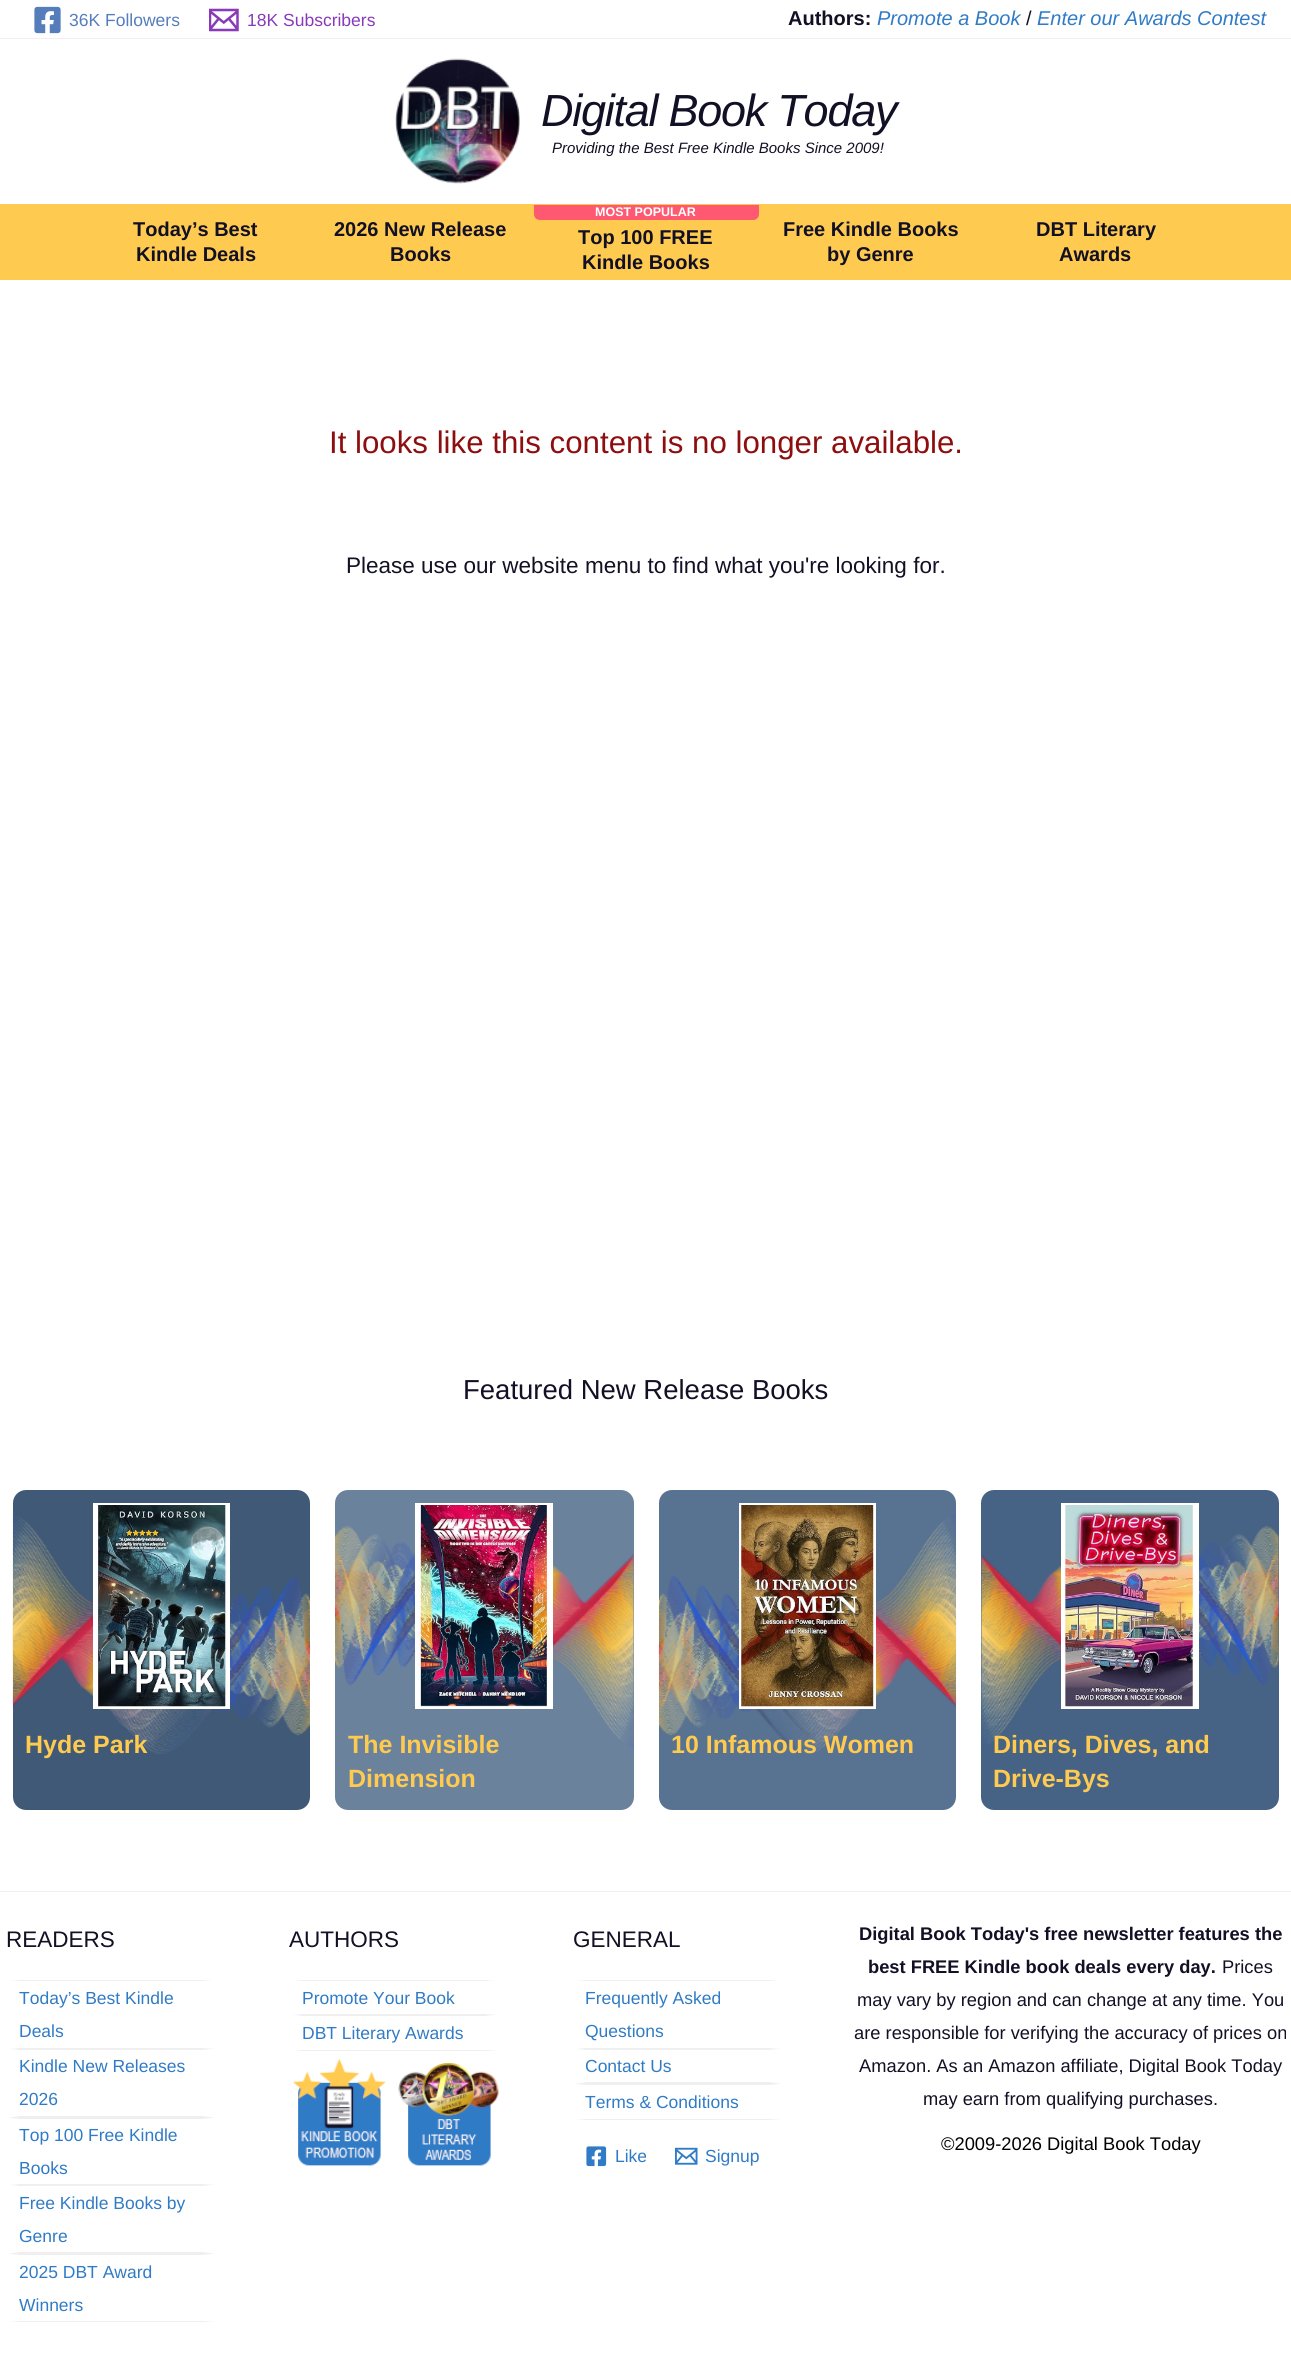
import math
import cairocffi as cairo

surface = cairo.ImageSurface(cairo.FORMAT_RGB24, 1291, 2353)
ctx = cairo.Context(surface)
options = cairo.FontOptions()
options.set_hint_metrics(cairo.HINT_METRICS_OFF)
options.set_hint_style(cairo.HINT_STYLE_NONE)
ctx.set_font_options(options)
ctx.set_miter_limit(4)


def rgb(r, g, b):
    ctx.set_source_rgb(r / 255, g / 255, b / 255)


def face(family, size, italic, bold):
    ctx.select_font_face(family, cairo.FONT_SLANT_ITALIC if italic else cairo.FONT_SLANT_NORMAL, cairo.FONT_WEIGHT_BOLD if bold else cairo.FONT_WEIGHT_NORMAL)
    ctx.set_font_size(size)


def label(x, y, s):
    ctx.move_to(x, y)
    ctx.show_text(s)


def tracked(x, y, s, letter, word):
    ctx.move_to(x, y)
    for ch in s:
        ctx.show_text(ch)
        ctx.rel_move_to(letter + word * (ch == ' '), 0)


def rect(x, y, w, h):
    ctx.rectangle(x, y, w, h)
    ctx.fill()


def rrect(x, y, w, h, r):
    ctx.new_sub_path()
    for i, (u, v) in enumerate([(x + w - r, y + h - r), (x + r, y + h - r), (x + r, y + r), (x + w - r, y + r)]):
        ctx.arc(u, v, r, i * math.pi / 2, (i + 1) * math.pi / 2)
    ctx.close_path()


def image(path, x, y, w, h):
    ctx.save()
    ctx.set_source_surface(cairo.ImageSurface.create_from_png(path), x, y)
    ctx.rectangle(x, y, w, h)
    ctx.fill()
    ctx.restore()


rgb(255, 255, 255)
ctx.paint()
rgb(239, 239, 239)
rect(0, 38, 1291, 1)
image('image0.png', 34, 6, 27, 28)
face('Liberation Sans', 17.5, 0, 0)
rgb(85, 125, 188)
label(69, 26, '36K Followers')
image('image1.png', 209, 8, 30, 24)
rgb(138, 58, 185)
label(247, 26, '18K Subscribers')
face('Liberation Sans', 20, 0, 1)
rgb(18, 16, 37)
label(788, 25, 'Authors:')
face('Liberation Sans', 20, 1, 0)
rgb(48, 123, 198)
label(877, 25, 'Promote a Book')
face('Liberation Sans', 20, 0, 0)
rgb(18, 16, 37)
label(1026, 25, '/')
face('Liberation Sans', 20, 1, 0)
rgb(48, 123, 198)
label(1037, 25, 'Enter our Awards Contest')
image('image2.png', 395, 58, 125, 126)
face('Liberation Sans', 45, 1, 0)
rgb(18, 16, 37)
tracked(541, 126, 'Digital Book Today', -1.25, 0)
face('Liberation Sans', 15, 1, 0)
label(552, 153, 'Providing the Best Free Kindle Books Since 2009!')
rgb(255, 202, 80)
rect(0, 204, 1291, 76)
face('Liberation Sans', 20, 0, 1)
rgb(18, 16, 37)
label(133, 236, 'Today’s Best')
label(136, 261, 'Kindle Deals')
label(334, 236, '2026 New Release')
label(390, 261, 'Books')
rgb(255, 89, 114)
ctx.new_path()
ctx.move_to(534, 205)
ctx.line_to(759, 205)
ctx.line_to(759, 214)
ctx.curve_to(759, 217.5, 756.5, 220, 753, 220)
ctx.line_to(540, 220)
ctx.curve_to(536.5, 220, 534, 217.5, 534, 214)
ctx.close_path()
ctx.fill()
face('Liberation Sans', 12.5, 0, 1)
rgb(255, 255, 255)
label(595, 216, 'MOST POPULAR')
face('Liberation Sans', 20, 0, 1)
rgb(18, 16, 37)
label(578, 244, 'Top 100 FREE')
label(582, 269, 'Kindle Books')
label(783, 236, 'Free Kindle Books')
label(827, 261, 'by Genre')
label(1036, 236, 'DBT Literary')
label(1059, 261, 'Awards')
face('Liberation Sans', 31.25, 0, 0)
rgb(142, 14, 15)
label(329, 453, 'It looks like this content is no longer available.')
face('Liberation Sans', 22.5, 0, 0)
rgb(18, 16, 37)
label(346, 573, 'Please use our website menu to find what you\'re looking for.')
face('Liberation Sans', 27.5, 0, 0)
label(463, 1399, 'Featured New Release Books')
rgb(63, 89, 119)
rrect(13, 1490, 297, 320, 13)
ctx.fill()
image('image3.png', 12, 1513, 298, 241)
ctx.rectangle(94.5, 1504.5, 134, 203)
rgb(255, 255, 255)
ctx.set_line_width(3)
ctx.stroke()
image('image4.png', 96, 1505, 132, 202)
face('Liberation Sans', 25, 0, 1)
rgb(255, 202, 80)
label(25, 1753, 'Hyde Park')
rgb(107, 130, 157)
rrect(335, 1490, 299, 320, 13)
ctx.fill()
image('image5.png', 335, 1526, 299, 222)
ctx.rectangle(416.5, 1504.5, 135, 203)
rgb(255, 255, 255)
ctx.stroke()
image('image6.png', 418, 1505, 132, 202)
rgb(255, 202, 80)
label(348, 1753, 'The Invisible')
label(348, 1787, 'Dimension')
rgb(88, 114, 145)
rrect(659, 1490, 297, 320, 13)
ctx.fill()
image('image7.png', 658, 1514, 299, 240)
ctx.rectangle(740.5, 1504.5, 134, 203)
rgb(255, 255, 255)
ctx.stroke()
image('image8.png', 741, 1505, 133, 202)
rgb(255, 202, 80)
label(671, 1753, '10 Infamous Women')
rgb(70, 99, 133)
rrect(981, 1490, 298, 320, 13)
ctx.fill()
image('image9.png', 981, 1526, 298, 222)
ctx.rectangle(1062.5, 1504.5, 135, 203)
rgb(255, 255, 255)
ctx.stroke()
image('image10.png', 1064, 1505, 132, 202)
rgb(255, 202, 80)
label(993, 1753, 'Diners, Dives, and')
label(993, 1787, 'Drive-Bys')
rgb(239, 239, 239)
rect(0, 1891, 1291, 1)
face('Liberation Sans', 22.5, 0, 0)
rgb(18, 16, 37)
label(6, 1947, 'READERS')
rgb(239, 239, 239)
ctx.new_path()
ctx.move_to(6, 1980)
ctx.line_to(215, 1980)
ctx.line_to(202, 1981)
ctx.line_to(19, 1981)
ctx.close_path()
ctx.fill()
rgb(255, 255, 255)
ctx.new_path()
ctx.move_to(215, 1980)
ctx.line_to(215, 2049)
ctx.line_to(202, 2048)
ctx.line_to(202, 1981)
ctx.close_path()
ctx.fill()
rgb(239, 239, 239)
ctx.new_path()
ctx.move_to(215, 2049)
ctx.line_to(6, 2049)
ctx.line_to(19, 2048)
ctx.line_to(202, 2048)
ctx.close_path()
ctx.fill()
rgb(255, 255, 255)
ctx.new_path()
ctx.move_to(6, 2049)
ctx.line_to(6, 1980)
ctx.line_to(19, 1981)
ctx.line_to(19, 2048)
ctx.close_path()
ctx.fill()
face('Liberation Sans', 17.5, 0, 0)
rgb(48, 123, 198)
label(19, 2004, 'Today’s Best Kindle')
label(19, 2037, 'Deals')
rgb(239, 239, 239)
ctx.new_path()
ctx.move_to(6, 2049)
ctx.line_to(215, 2049)
ctx.line_to(202, 2050)
ctx.line_to(19, 2050)
ctx.close_path()
ctx.fill()
rgb(255, 255, 255)
ctx.new_path()
ctx.move_to(215, 2049)
ctx.line_to(215, 2118)
ctx.line_to(202, 2116)
ctx.line_to(202, 2050)
ctx.close_path()
ctx.fill()
rgb(239, 239, 239)
ctx.new_path()
ctx.move_to(215, 2118)
ctx.line_to(6, 2118)
ctx.line_to(19, 2116)
ctx.line_to(202, 2116)
ctx.close_path()
ctx.fill()
rgb(255, 255, 255)
ctx.new_path()
ctx.move_to(6, 2118)
ctx.line_to(6, 2049)
ctx.line_to(19, 2050)
ctx.line_to(19, 2116)
ctx.close_path()
ctx.fill()
rgb(48, 123, 198)
label(19, 2072, 'Kindle New Releases')
label(19, 2105, '2026')
rgb(239, 239, 239)
ctx.new_path()
ctx.move_to(6, 2118)
ctx.line_to(215, 2118)
ctx.line_to(202, 2119)
ctx.line_to(19, 2119)
ctx.close_path()
ctx.fill()
rgb(255, 255, 255)
ctx.new_path()
ctx.move_to(215, 2118)
ctx.line_to(215, 2185)
ctx.line_to(202, 2184)
ctx.line_to(202, 2119)
ctx.close_path()
ctx.fill()
rgb(239, 239, 239)
ctx.new_path()
ctx.move_to(215, 2185)
ctx.line_to(6, 2185)
ctx.line_to(19, 2184)
ctx.line_to(202, 2184)
ctx.close_path()
ctx.fill()
rgb(255, 255, 255)
ctx.new_path()
ctx.move_to(6, 2185)
ctx.line_to(6, 2118)
ctx.line_to(19, 2119)
ctx.line_to(19, 2184)
ctx.close_path()
ctx.fill()
rgb(48, 123, 198)
label(19, 2141, 'Top 100 Free Kindle')
label(19, 2174, 'Books')
rgb(239, 239, 239)
ctx.new_path()
ctx.move_to(6, 2185)
ctx.line_to(215, 2185)
ctx.line_to(202, 2186)
ctx.line_to(19, 2186)
ctx.close_path()
ctx.fill()
rgb(255, 255, 255)
ctx.new_path()
ctx.move_to(215, 2185)
ctx.line_to(215, 2254)
ctx.line_to(202, 2252)
ctx.line_to(202, 2186)
ctx.close_path()
ctx.fill()
rgb(239, 239, 239)
ctx.new_path()
ctx.move_to(215, 2254)
ctx.line_to(6, 2254)
ctx.line_to(19, 2252)
ctx.line_to(202, 2252)
ctx.close_path()
ctx.fill()
rgb(255, 255, 255)
ctx.new_path()
ctx.move_to(6, 2254)
ctx.line_to(6, 2185)
ctx.line_to(19, 2186)
ctx.line_to(19, 2252)
ctx.close_path()
ctx.fill()
rgb(48, 123, 198)
label(19, 2209, 'Free Kindle Books by')
label(19, 2242, 'Genre')
rgb(239, 239, 239)
ctx.new_path()
ctx.move_to(6, 2254)
ctx.line_to(215, 2254)
ctx.line_to(202, 2255)
ctx.line_to(19, 2255)
ctx.close_path()
ctx.fill()
rgb(255, 255, 255)
ctx.new_path()
ctx.move_to(215, 2254)
ctx.line_to(215, 2322)
ctx.line_to(202, 2321)
ctx.line_to(202, 2255)
ctx.close_path()
ctx.fill()
rgb(239, 239, 239)
ctx.new_path()
ctx.move_to(215, 2322)
ctx.line_to(6, 2322)
ctx.line_to(19, 2321)
ctx.line_to(202, 2321)
ctx.close_path()
ctx.fill()
rgb(255, 255, 255)
ctx.new_path()
ctx.move_to(6, 2322)
ctx.line_to(6, 2254)
ctx.line_to(19, 2255)
ctx.line_to(19, 2321)
ctx.close_path()
ctx.fill()
rgb(48, 123, 198)
label(19, 2278, '2025 DBT Award')
label(19, 2311, 'Winners')
face('Liberation Sans', 22.5, 0, 0)
rgb(18, 16, 37)
label(289, 1947, 'AUTHORS')
rgb(239, 239, 239)
ctx.new_path()
ctx.move_to(290, 1980)
ctx.line_to(498, 1980)
ctx.line_to(485, 1981)
ctx.line_to(302, 1981)
ctx.close_path()
ctx.fill()
rgb(255, 255, 255)
ctx.new_path()
ctx.move_to(497.5, 1980)
ctx.line_to(497.5, 2015)
ctx.line_to(485, 2014)
ctx.line_to(485, 1981)
ctx.close_path()
ctx.fill()
rgb(239, 239, 239)
ctx.new_path()
ctx.move_to(498, 2015)
ctx.line_to(290, 2015)
ctx.line_to(302, 2014)
ctx.line_to(485, 2014)
ctx.close_path()
ctx.fill()
rgb(255, 255, 255)
ctx.new_path()
ctx.move_to(290, 2015)
ctx.line_to(290, 1980)
ctx.line_to(302.5, 1981)
ctx.line_to(302.5, 2014)
ctx.close_path()
ctx.fill()
face('Liberation Sans', 17.5, 0, 0)
rgb(48, 123, 198)
label(302, 2004, 'Promote Your Book')
rgb(239, 239, 239)
ctx.new_path()
ctx.move_to(290, 2015)
ctx.line_to(498, 2015)
ctx.line_to(485, 2016)
ctx.line_to(302, 2016)
ctx.close_path()
ctx.fill()
rgb(255, 255, 255)
ctx.new_path()
ctx.move_to(497.5, 2015)
ctx.line_to(497.5, 2051)
ctx.line_to(485, 2050)
ctx.line_to(485, 2016)
ctx.close_path()
ctx.fill()
rgb(239, 239, 239)
ctx.new_path()
ctx.move_to(498, 2051)
ctx.line_to(290, 2051)
ctx.line_to(302, 2050)
ctx.line_to(485, 2050)
ctx.close_path()
ctx.fill()
rgb(255, 255, 255)
ctx.new_path()
ctx.move_to(290, 2051)
ctx.line_to(290, 2015)
ctx.line_to(302.5, 2016)
ctx.line_to(302.5, 2050)
ctx.close_path()
ctx.fill()
rgb(48, 123, 198)
label(302, 2039, 'DBT Literary Awards')
image('image11.png', 292, 2058, 94, 108)
image('image12.png', 398, 2063, 102, 103)
face('Liberation Sans', 22.5, 0, 0)
rgb(18, 16, 37)
label(573, 1947, 'GENERAL')
rgb(239, 239, 239)
ctx.new_path()
ctx.move_to(572, 1980)
ctx.line_to(781, 1980)
ctx.line_to(769, 1981)
ctx.line_to(585, 1981)
ctx.close_path()
ctx.fill()
rgb(255, 255, 255)
ctx.new_path()
ctx.move_to(781, 1980)
ctx.line_to(781, 2049)
ctx.line_to(769, 2048)
ctx.line_to(769, 1981)
ctx.close_path()
ctx.fill()
rgb(239, 239, 239)
ctx.new_path()
ctx.move_to(781, 2049)
ctx.line_to(572, 2049)
ctx.line_to(585, 2048)
ctx.line_to(769, 2048)
ctx.close_path()
ctx.fill()
rgb(255, 255, 255)
ctx.new_path()
ctx.move_to(572, 2049)
ctx.line_to(572, 1980)
ctx.line_to(585, 1981)
ctx.line_to(585, 2048)
ctx.close_path()
ctx.fill()
face('Liberation Sans', 17.5, 0, 0)
rgb(48, 123, 198)
label(585, 2004, 'Frequently Asked')
label(585, 2037, 'Questions')
rgb(239, 239, 239)
ctx.new_path()
ctx.move_to(572, 2049)
ctx.line_to(781, 2049)
ctx.line_to(769, 2050)
ctx.line_to(585, 2050)
ctx.close_path()
ctx.fill()
rgb(255, 255, 255)
ctx.new_path()
ctx.move_to(781, 2049)
ctx.line_to(781, 2084)
ctx.line_to(769, 2082.5)
ctx.line_to(769, 2050)
ctx.close_path()
ctx.fill()
rgb(239, 239, 239)
ctx.new_path()
ctx.move_to(781, 2084)
ctx.line_to(572, 2084)
ctx.line_to(585, 2082)
ctx.line_to(769, 2082)
ctx.close_path()
ctx.fill()
rgb(255, 255, 255)
ctx.new_path()
ctx.move_to(572.5, 2084)
ctx.line_to(572.5, 2049)
ctx.line_to(585, 2050)
ctx.line_to(585, 2082.5)
ctx.close_path()
ctx.fill()
rgb(48, 123, 198)
label(585, 2072, 'Contact Us')
rgb(239, 239, 239)
ctx.new_path()
ctx.move_to(572, 2084)
ctx.line_to(781, 2084)
ctx.line_to(769, 2085)
ctx.line_to(585, 2085)
ctx.close_path()
ctx.fill()
rgb(255, 255, 255)
ctx.new_path()
ctx.move_to(781, 2084)
ctx.line_to(781, 2120)
ctx.line_to(769, 2119)
ctx.line_to(769, 2085)
ctx.close_path()
ctx.fill()
rgb(239, 239, 239)
ctx.new_path()
ctx.move_to(781, 2120)
ctx.line_to(572, 2120)
ctx.line_to(585, 2119)
ctx.line_to(769, 2119)
ctx.close_path()
ctx.fill()
rgb(255, 255, 255)
ctx.new_path()
ctx.move_to(572.5, 2120)
ctx.line_to(572.5, 2084)
ctx.line_to(585, 2085)
ctx.line_to(585, 2119)
ctx.close_path()
ctx.fill()
rgb(48, 123, 198)
label(585, 2108, 'Terms & Conditions')
image('image13.png', 586, 2146, 21, 21)
label(615, 2162, 'Like')
image('image14.png', 675, 2147, 23, 18)
label(705, 2162, 'Signup')
face('Liberation Sans', 18.3, 0, 1)
rgb(18, 16, 37)
label(859, 1940, 'Digital Book Today\'s free newsletter features the')
label(868, 1973, 'best FREE Kindle book deals every day.')
face('Liberation Sans', 18.3, 0, 0)
label(1222, 1973, 'Prices')
label(857, 2006, 'may vary by region and can change at any time. You')
label(854, 2039, 'are responsible for verifying the accuracy of prices on')
label(859, 2072, 'Amazon. As an Amazon affiliate, Digital Book Today')
label(923, 2105, 'may earn from qualifying purchases.')
rgb(0, 0, 0)
label(941, 2150, '©2009-2026 Digital Book Today')
surface.write_to_png('render.png')
